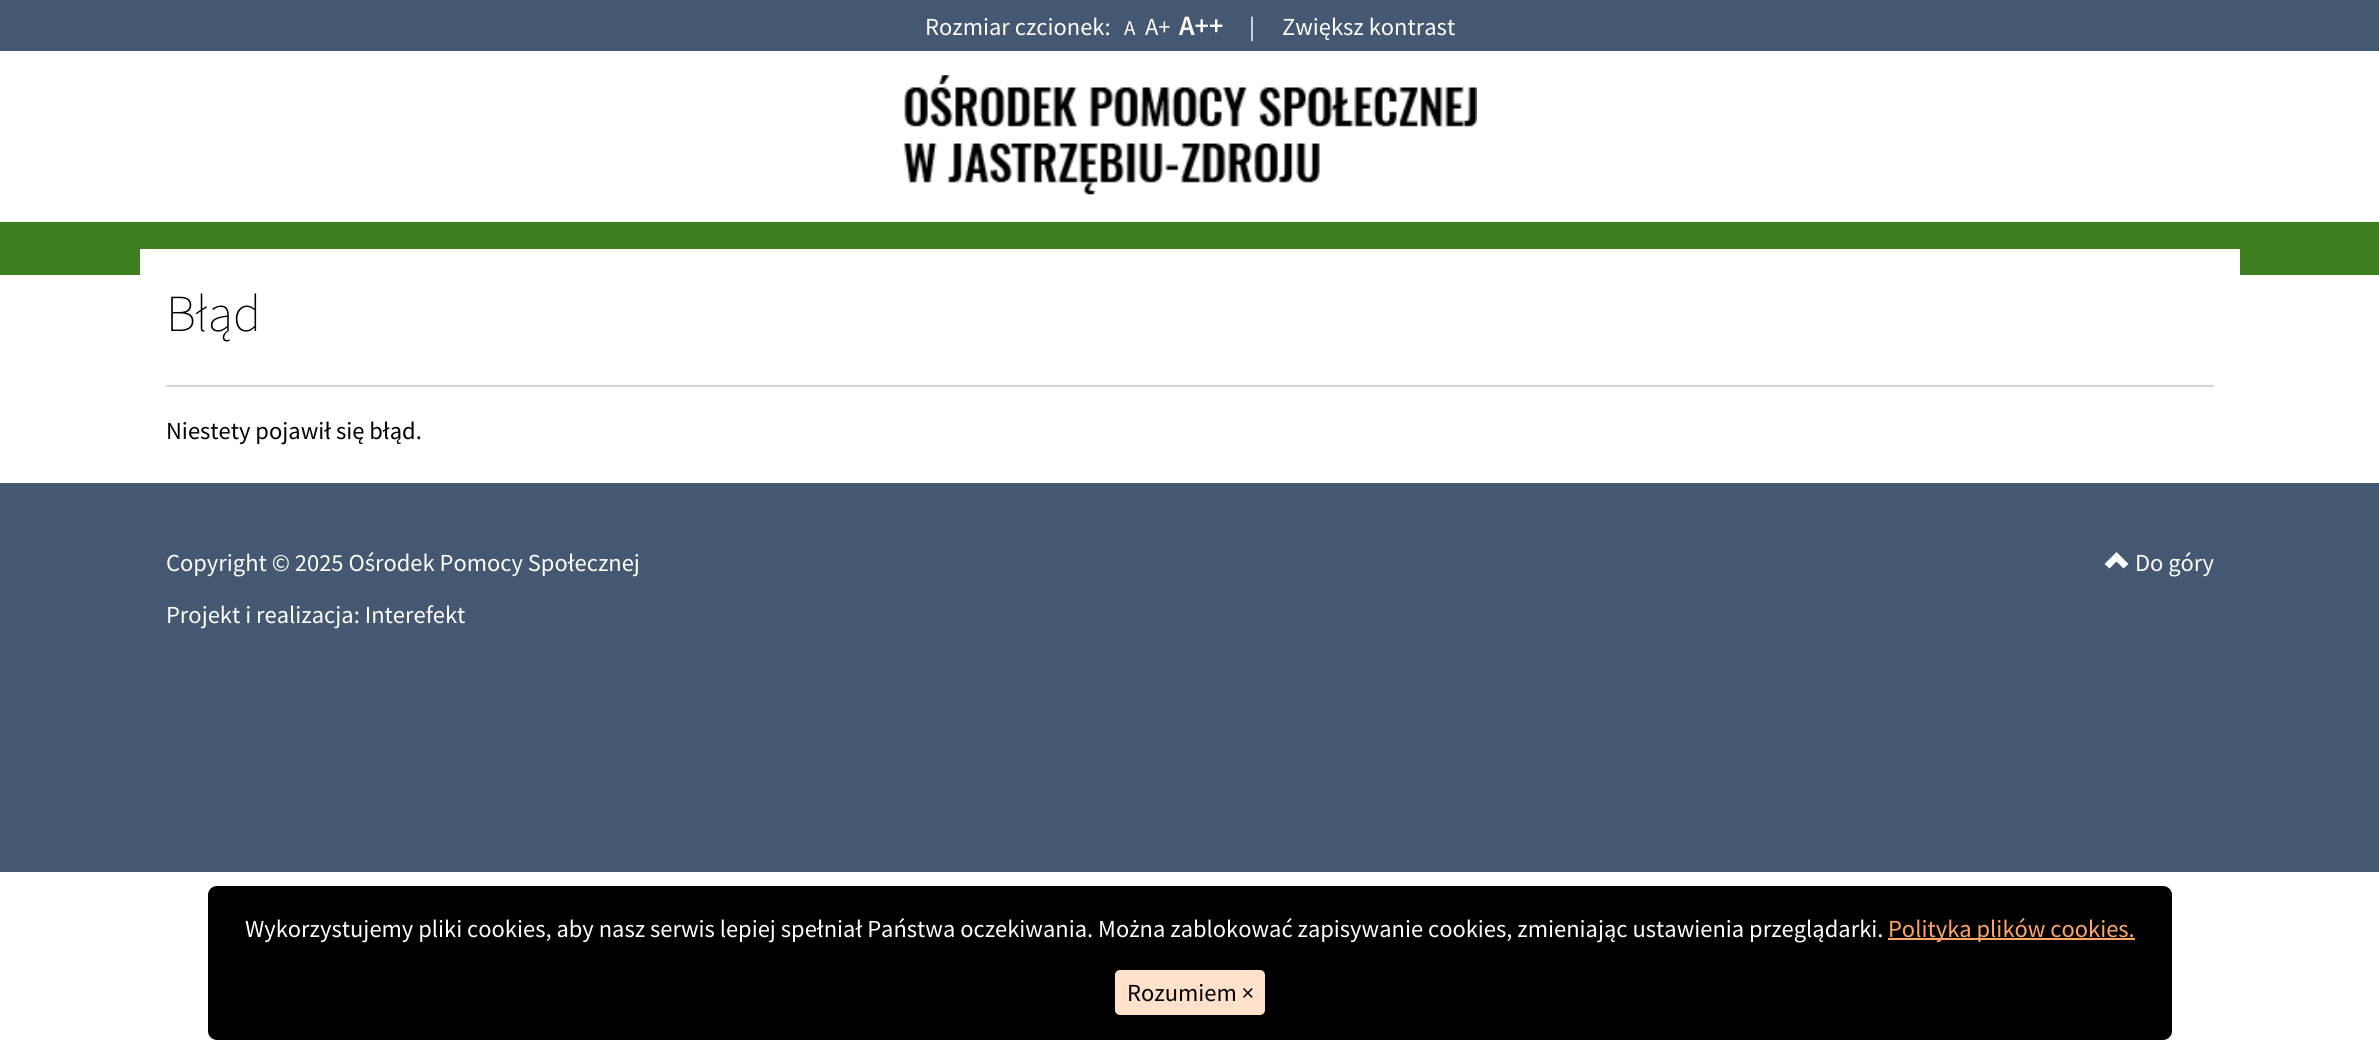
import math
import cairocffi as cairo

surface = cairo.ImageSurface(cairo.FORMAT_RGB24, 2379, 1063)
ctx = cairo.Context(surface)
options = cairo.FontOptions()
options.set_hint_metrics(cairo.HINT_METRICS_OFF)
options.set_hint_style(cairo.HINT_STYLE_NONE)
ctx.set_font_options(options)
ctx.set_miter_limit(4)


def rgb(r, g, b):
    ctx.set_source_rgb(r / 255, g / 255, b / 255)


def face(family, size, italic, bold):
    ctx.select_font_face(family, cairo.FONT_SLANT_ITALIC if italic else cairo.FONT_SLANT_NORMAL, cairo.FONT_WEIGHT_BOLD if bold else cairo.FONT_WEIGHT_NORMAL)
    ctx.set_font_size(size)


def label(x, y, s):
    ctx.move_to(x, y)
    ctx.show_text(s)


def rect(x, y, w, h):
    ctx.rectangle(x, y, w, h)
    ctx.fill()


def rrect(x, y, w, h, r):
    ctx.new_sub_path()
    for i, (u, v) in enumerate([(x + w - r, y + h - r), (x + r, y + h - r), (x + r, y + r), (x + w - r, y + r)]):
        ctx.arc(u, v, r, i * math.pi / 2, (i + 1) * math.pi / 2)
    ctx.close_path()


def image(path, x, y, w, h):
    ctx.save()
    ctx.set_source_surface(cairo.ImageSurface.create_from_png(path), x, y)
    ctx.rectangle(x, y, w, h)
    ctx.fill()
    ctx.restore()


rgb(255, 255, 255)
ctx.paint()
rgb(68, 88, 113)
rect(0, 0, 2379, 51)
face('Source Sans Pro', 24.5, 0, 0)
rgb(255, 255, 255)
label(925, 35, 'Rozmiar czcionek:')
face('Source Sans Pro', 21, 0, 0)
label(1124, 35, 'A')
face('Source Sans Pro', 24.5, 0, 0)
label(1145, 35, 'A+')
face('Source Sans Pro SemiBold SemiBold', 28, 0, 0)
label(1179, 35, 'A++')
face('Source Sans Pro', 24.5, 0, 0)
label(1249, 35, '|')
label(1282, 35, 'Zwiększ kontrast')
image('image0.png', 903, 75, 574, 120)
rgb(243, 243, 243)
rect(0, 221, 2379, 1)
rgb(61, 127, 30)
rect(0, 222, 2379, 53)
rgb(255, 255, 255)
rect(140, 249, 2100, 26)
rgb(213, 213, 213)
rect(166, 385, 2048, 2)
face('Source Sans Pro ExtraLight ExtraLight', 52, 0, 0)
rgb(0, 0, 0)
label(166, 331, 'Błąd')
face('Source Sans Pro', 24.5, 0, 0)
label(166, 439, 'Niestety pojawił się błąd.')
rgb(68, 88, 113)
rect(0, 483, 2379, 389)
rgb(255, 255, 255)
label(166, 571, 'Copyright © 2025 Ośrodek Pomocy Społecznej')
label(166, 623, 'Projekt i realizacja: Interefekt')
ctx.new_path()
ctx.move_to(2104.5, 564)
ctx.line_to(2109.5, 568.5)
ctx.line_to(2116.5, 561.5)
ctx.line_to(2123.5, 568.5)
ctx.line_to(2128.5, 564)
ctx.line_to(2116.5, 552)
ctx.close_path()
ctx.fill()
label(2135, 571, 'Do góry')
rgb(0, 0, 0)
rrect(208, 886, 1964, 154, 9)
ctx.fill()
rgb(255, 255, 255)
label(245, 937, 'Wykorzystujemy pliki cookies, aby nasz serwis lepiej spełniał Państwa oczekiwania. Można zablokować zapisywanie cookies, zmieniając ustawienia przeglądarki.')
rgb(255, 166, 102)
rect(1888, 938, 247, 2)
label(1888, 937, 'Polityka plików cookies.')
rgb(255, 225, 204)
rrect(1115, 970, 150, 45, 5)
ctx.fill()
rgb(0, 0, 0)
label(1127, 1001, 'Rozumiem ×')
surface.write_to_png('render.png')
